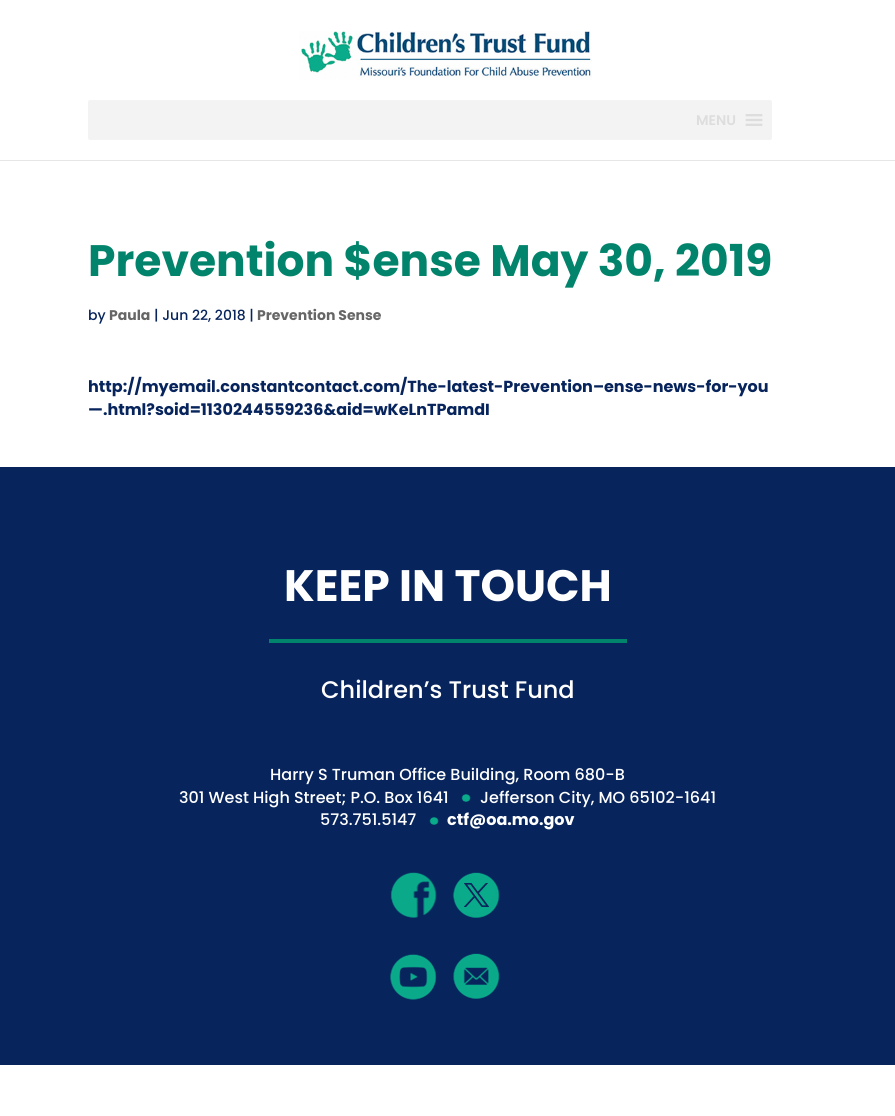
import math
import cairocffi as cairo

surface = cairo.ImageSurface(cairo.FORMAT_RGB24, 895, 1116)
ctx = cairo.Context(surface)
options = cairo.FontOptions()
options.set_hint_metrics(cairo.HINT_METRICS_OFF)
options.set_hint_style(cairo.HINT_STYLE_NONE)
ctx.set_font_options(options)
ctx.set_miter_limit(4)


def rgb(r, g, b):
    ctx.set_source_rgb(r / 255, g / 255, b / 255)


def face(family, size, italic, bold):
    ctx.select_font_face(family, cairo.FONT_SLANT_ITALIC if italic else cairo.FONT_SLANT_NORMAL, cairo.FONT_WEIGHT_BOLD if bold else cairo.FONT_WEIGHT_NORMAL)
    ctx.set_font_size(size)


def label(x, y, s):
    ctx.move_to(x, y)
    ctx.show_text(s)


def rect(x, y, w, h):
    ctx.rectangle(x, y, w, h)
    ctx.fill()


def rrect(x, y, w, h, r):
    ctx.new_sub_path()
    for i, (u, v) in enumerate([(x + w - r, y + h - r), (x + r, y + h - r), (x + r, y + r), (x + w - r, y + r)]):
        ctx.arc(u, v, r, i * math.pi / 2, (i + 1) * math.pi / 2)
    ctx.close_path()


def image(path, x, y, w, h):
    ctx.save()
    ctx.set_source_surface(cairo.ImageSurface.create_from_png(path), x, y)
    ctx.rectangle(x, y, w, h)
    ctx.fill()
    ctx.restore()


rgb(255, 255, 255)
ctx.paint()
rgb(230, 230, 230)
rect(0, 160, 895, 1)
image('image0.png', 299, 31, 293, 49)
rgb(243, 243, 243)
rrect(88, 100, 684, 40, 2)
ctx.fill()
face('Poppins SemiBold', 14, 0, 0)
rgb(221, 221, 221)
label(696, 125, 'MENU')
image('image1.png', 745, 114, 18, 12)
face('Poppins', 44, 0, 1)
rgb(2, 131, 107)
label(88, 276, 'Prevention $ense May 30, 2019')
face('Poppins Medium', 14, 0, 0)
rgb(7, 36, 92)
label(88, 320, 'by')
face('Poppins', 14, 0, 1)
rgb(102, 102, 102)
label(109, 320, 'Paula')
face('Poppins Medium', 14, 0, 0)
rgb(7, 36, 92)
label(154, 320, '| Jun 22, 2018 |')
face('Poppins', 14, 0, 1)
rgb(102, 102, 102)
label(257, 320, 'Prevention Sense')
face('Poppins', 16, 0, 1)
rgb(7, 36, 92)
label(88, 392, 'http://myemail.constantcontact.com/The-latest-Prevention–ense-news-for-you')
label(88, 415, '—.html?soid=1130244559236&aid=wKeLnTPamdI')
rect(0, 467, 895, 598)
face('Poppins', 44, 0, 1)
rgb(255, 255, 255)
label(284, 601, 'KEEP IN TOUCH')
rgb(2, 131, 107)
rect(269, 639, 358, 4)
face('Poppins Medium', 24, 0, 0)
rgb(255, 255, 255)
label(321, 698, 'Children’s Trust Fund')
face('Poppins Medium', 16, 0, 0)
label(270, 780, 'Harry S Truman Office Building, Room 680-B')
label(179, 803, '301 West High Street; P.O. Box 1641')
image('image2.png', 461, 794, 10, 8)
label(480, 803, 'Jefferson City, MO 65102-1641')
label(320, 825, '573.751.5147')
image('image3.png', 429, 817, 10, 8)
face('Poppins', 16, 0, 1)
label(447, 825, 'ctf@oa.mo.gov')
image('image4.png', 390, 872, 47, 46)
image('image5.png', 452, 872, 48, 46)
image('image6.png', 390, 954, 47, 46)
image('image7.png', 453, 953, 47, 46)
surface.write_to_png('render.png')
